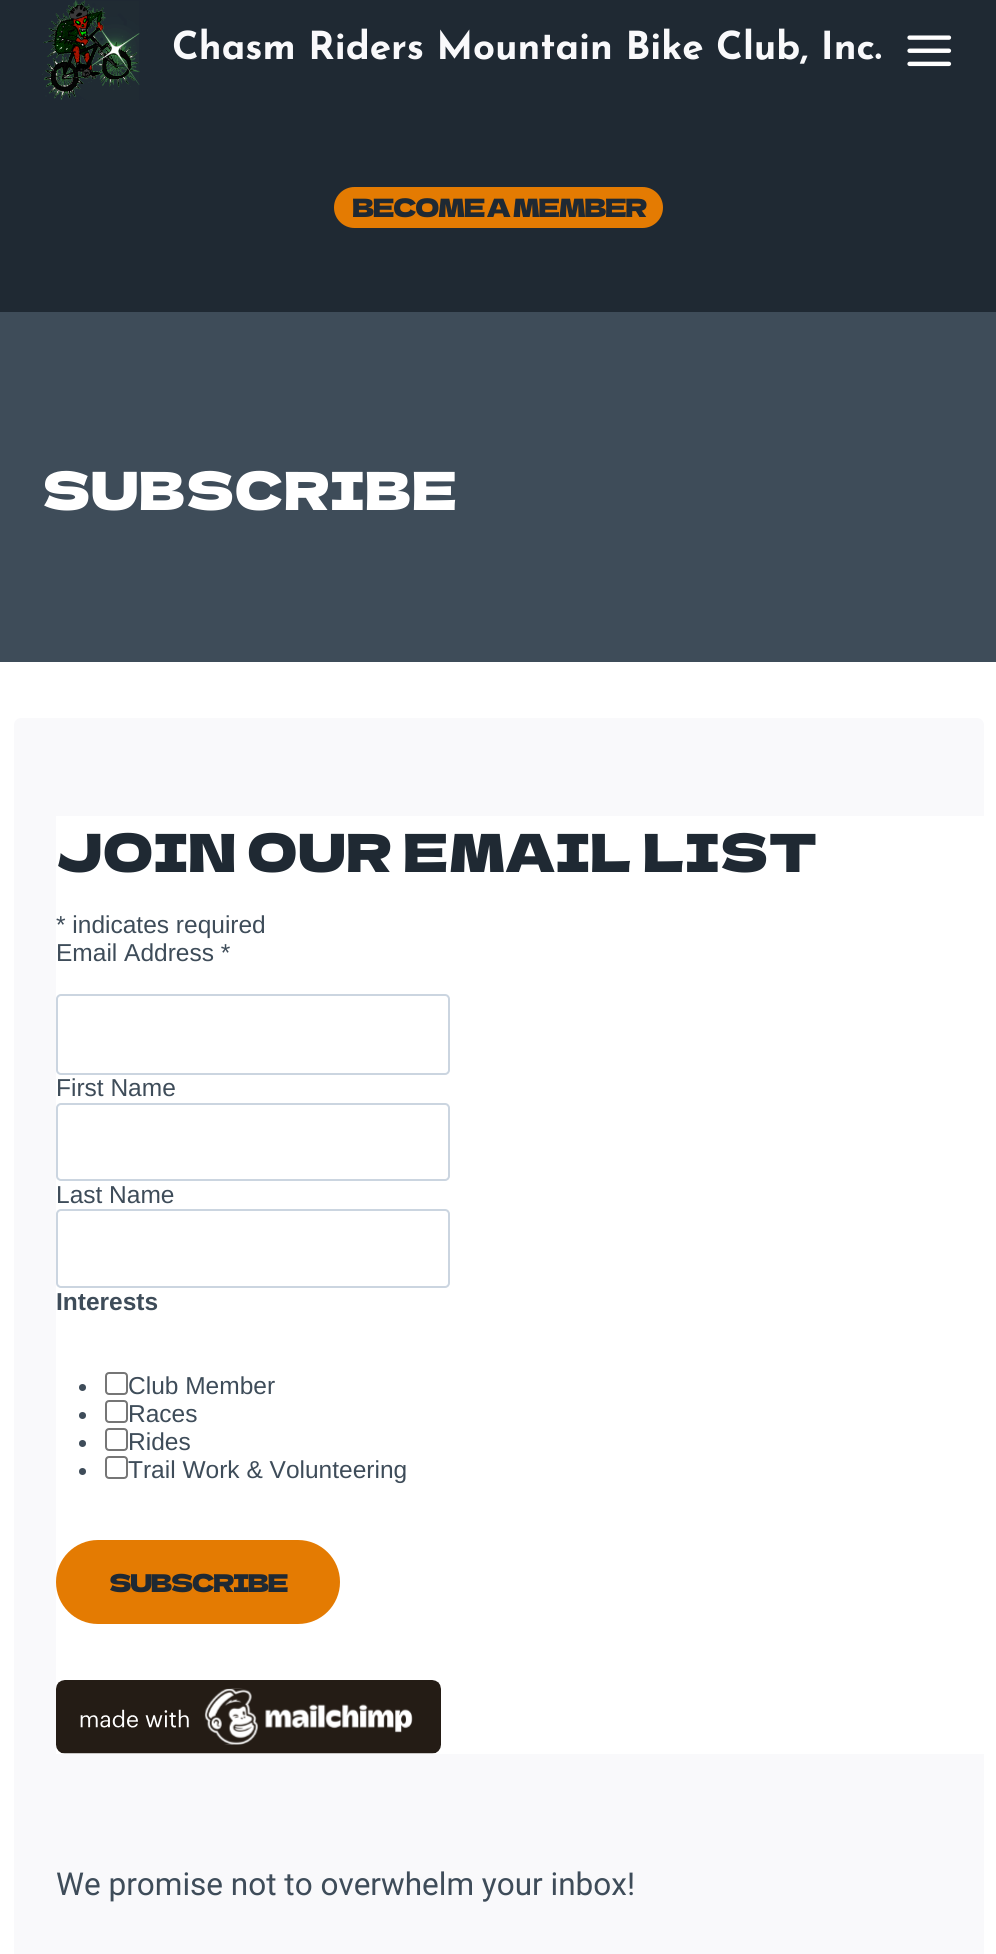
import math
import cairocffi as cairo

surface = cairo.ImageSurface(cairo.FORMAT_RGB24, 996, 1954)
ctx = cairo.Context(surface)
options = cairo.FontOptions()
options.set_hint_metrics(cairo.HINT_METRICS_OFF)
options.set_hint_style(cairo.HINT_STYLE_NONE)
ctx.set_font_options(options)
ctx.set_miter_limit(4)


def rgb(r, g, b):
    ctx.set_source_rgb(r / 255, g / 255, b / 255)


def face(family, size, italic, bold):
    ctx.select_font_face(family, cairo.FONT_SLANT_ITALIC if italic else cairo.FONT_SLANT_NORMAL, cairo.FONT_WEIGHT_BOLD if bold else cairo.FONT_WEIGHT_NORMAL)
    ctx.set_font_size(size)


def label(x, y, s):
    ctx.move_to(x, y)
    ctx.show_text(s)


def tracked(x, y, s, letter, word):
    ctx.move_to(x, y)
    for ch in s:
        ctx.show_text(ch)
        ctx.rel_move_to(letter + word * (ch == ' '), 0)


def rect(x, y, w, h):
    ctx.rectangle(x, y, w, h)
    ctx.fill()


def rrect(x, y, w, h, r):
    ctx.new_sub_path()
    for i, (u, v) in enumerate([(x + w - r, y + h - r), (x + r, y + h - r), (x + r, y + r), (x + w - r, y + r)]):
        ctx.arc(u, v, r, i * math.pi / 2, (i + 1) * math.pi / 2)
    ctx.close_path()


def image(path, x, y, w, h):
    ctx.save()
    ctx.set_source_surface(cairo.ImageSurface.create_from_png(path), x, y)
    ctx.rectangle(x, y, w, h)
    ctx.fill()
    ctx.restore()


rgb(255, 255, 255)
ctx.paint()
rgb(31, 41, 51)
rect(0, 0, 996, 312)
image('image0.png', 42, 0, 98, 100)
face('Josefin Sans Thin', 38.5, 0, 0)
rgb(249, 249, 251)
label(172, 59, 'Chasm Riders Mountain Bike Club, Inc.')
image('image1.png', 907, 35, 45, 32)
rgb(228, 123, 2)
rrect(334, 187, 329, 41, 20.5)
ctx.fill()
face('Dela Gothic One', 25.25, 0, 0)
rgb(31, 41, 51)
tracked(352, 217, 'BECOME A MEMBER', -1.75, 0)
rgb(62, 76, 89)
rect(0, 312, 996, 350)
face('Dela Gothic One', 52.5, 0, 0)
rgb(255, 255, 255)
label(42, 510, 'SUBSCRIBE')
rgb(249, 249, 251)
rrect(14, 718, 970, 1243, 7)
ctx.fill()
rgb(255, 255, 255)
rect(56, 816, 928, 938)
rgb(31, 41, 51)
label(56, 872, 'JOIN OUR EMAIL LIST')
face('Liberation Sans', 24.5, 0, 0)
rgb(62, 76, 89)
label(56, 933, '* indicates required')
label(56, 961, 'Email Address *')
rrect(57, 995, 392, 79, 4)
rgb(203, 213, 224)
ctx.stroke()
rgb(62, 76, 89)
label(56, 1096, 'First Name')
rrect(57, 1104, 392, 76, 4)
rgb(203, 213, 224)
ctx.stroke()
rgb(62, 76, 89)
label(56, 1203, 'Last Name')
rrect(57, 1210, 392, 77, 4)
rgb(203, 213, 224)
ctx.stroke()
face('Liberation Sans', 24.5, 0, 1)
rgb(62, 76, 89)
label(56, 1310, 'Interests')
ctx.new_path()
ctx.arc(82.5, 1387.5, 3.5, 0, 2 * math.pi)
ctx.fill()
rrect(106, 1373, 21, 21, 3)
rgb(118, 118, 118)
ctx.stroke()
face('Liberation Sans', 24.5, 0, 0)
rgb(62, 76, 89)
label(128, 1394, 'Club Member')
ctx.new_path()
ctx.arc(82.5, 1415.5, 3.5, 0, 2 * math.pi)
ctx.fill()
rrect(106, 1401, 21, 21, 3)
rgb(118, 118, 118)
ctx.stroke()
rgb(62, 76, 89)
label(128, 1422, 'Races')
ctx.new_path()
ctx.arc(82.5, 1443.5, 3.5, 0, 2 * math.pi)
ctx.fill()
rrect(106, 1429, 21, 21, 3)
rgb(118, 118, 118)
ctx.stroke()
rgb(62, 76, 89)
label(128, 1450, 'Rides')
ctx.new_path()
ctx.arc(82.5, 1471.5, 3.5, 0, 2 * math.pi)
ctx.fill()
rrect(106, 1457, 21, 21, 3)
rgb(118, 118, 118)
ctx.stroke()
rgb(62, 76, 89)
label(128, 1478, 'Trail Work & Volunteering')
rgb(228, 123, 2)
rrect(56, 1540, 284, 84, 42)
ctx.fill()
face('Dela Gothic One', 24.5, 0, 0)
rgb(31, 41, 51)
tracked(109, 1592, 'SUBSCRIBE', -1.75, 0)
image('image2.png', 56, 1680, 385, 74)
face('Roboto', 31.5, 0, 0)
rgb(62, 76, 89)
label(56, 1895, 'We promise not to overwhelm your inbox!')
surface.write_to_png('render.png')
